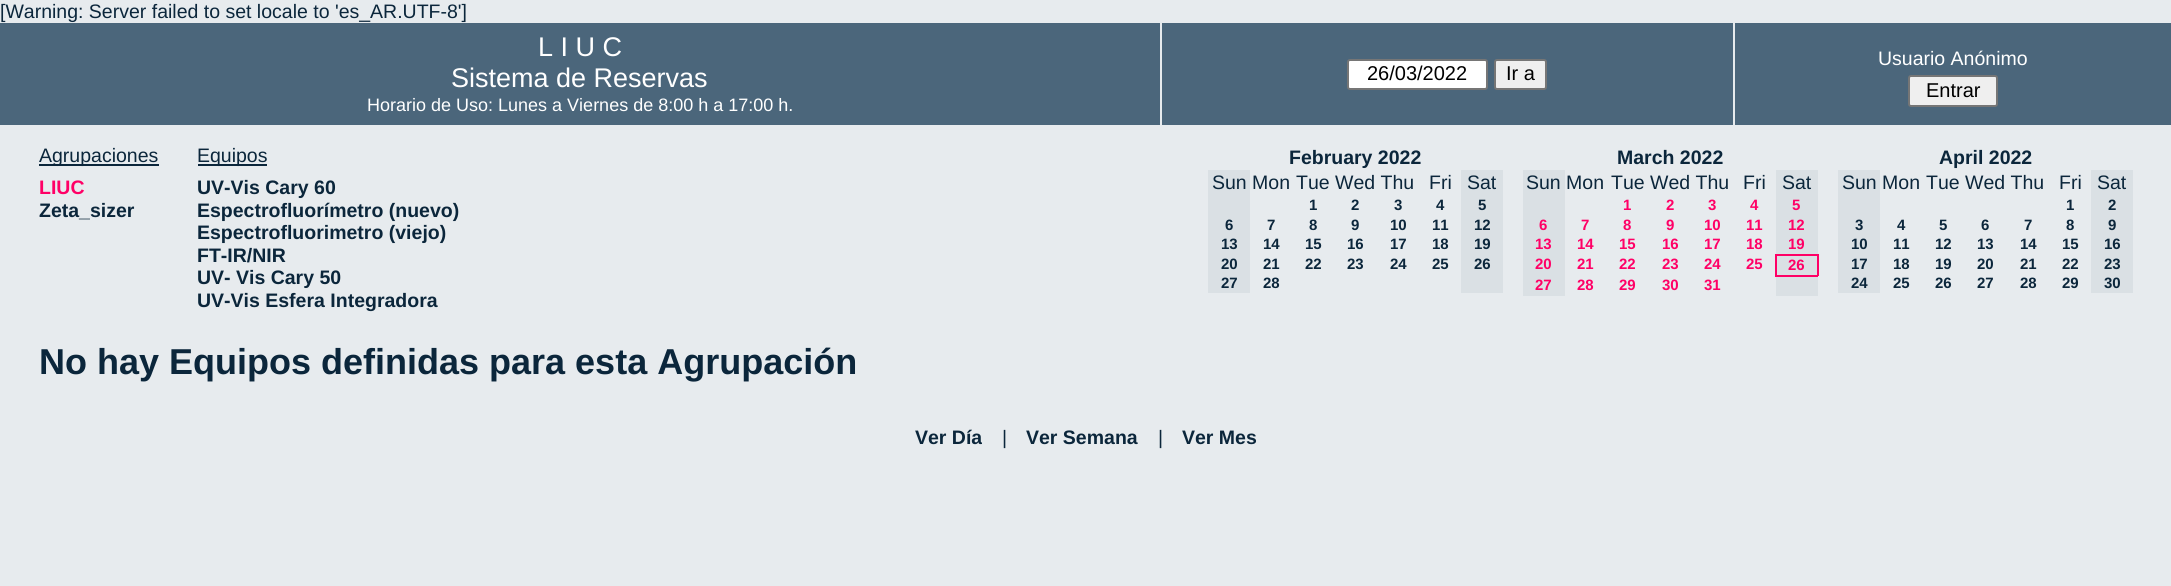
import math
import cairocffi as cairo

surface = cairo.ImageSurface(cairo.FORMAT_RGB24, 2171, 586)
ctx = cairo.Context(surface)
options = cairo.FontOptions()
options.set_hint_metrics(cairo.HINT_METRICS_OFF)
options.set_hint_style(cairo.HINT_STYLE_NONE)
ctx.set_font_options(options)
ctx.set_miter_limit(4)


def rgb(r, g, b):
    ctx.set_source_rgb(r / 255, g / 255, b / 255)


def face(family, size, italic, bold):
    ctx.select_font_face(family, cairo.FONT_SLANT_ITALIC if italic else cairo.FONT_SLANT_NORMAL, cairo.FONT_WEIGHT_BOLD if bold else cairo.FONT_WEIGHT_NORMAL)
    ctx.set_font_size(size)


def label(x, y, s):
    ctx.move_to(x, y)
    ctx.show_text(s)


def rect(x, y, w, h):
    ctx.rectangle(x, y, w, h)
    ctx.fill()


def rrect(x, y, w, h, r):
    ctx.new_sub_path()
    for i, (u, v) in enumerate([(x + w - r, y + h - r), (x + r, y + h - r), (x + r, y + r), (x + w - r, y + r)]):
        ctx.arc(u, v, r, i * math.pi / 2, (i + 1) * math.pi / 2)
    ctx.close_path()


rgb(231, 235, 238)
ctx.paint()
face('Liberation Sans', 19.5, 0, 0)
rgb(11, 38, 59)
label(0, 18, '[Warning: Server failed to set locale to \'es_AR.UTF-8\']')
rgb(75, 102, 123)
rect(0, 23, 1160, 102)
face('Liberation Sans', 27, 0, 0)
rgb(255, 255, 255)
label(538, 56, 'L I U C')
label(451, 87, 'Sistema de Reservas')
face('Liberation Sans', 18, 0, 0)
label(367, 111, 'Horario de Uso: Lunes a Viernes de 8:00 h a 17:00 h.')
rgb(75, 102, 123)
rect(1162, 23, 571, 102)
rgb(255, 255, 255)
rrect(1348, 60, 139, 29, 2)
ctx.fill_preserve()
rgb(118, 118, 118)
ctx.stroke()
face('Liberation Sans', 20, 0, 0)
rgb(0, 0, 0)
label(1367, 80, '26/03/2022')
rgb(239, 239, 239)
rrect(1495, 60, 51, 29, 2)
ctx.fill_preserve()
rgb(118, 118, 118)
ctx.stroke()
rgb(0, 0, 0)
label(1506, 80, 'Ir a')
rgb(75, 102, 123)
rect(1735, 23, 436, 102)
face('Liberation Sans', 19.5, 0, 0)
rgb(255, 255, 255)
label(1878, 65, 'Usuario Anónimo')
rgb(239, 239, 239)
rrect(1909, 76, 88, 30, 2)
ctx.fill_preserve()
rgb(118, 118, 118)
ctx.stroke()
face('Liberation Sans', 20, 0, 0)
rgb(0, 0, 0)
label(1926, 97, 'Entrar')
rgb(11, 38, 59)
rect(39, 164, 120, 2)
face('Liberation Sans', 19.5, 0, 0)
label(39, 162, 'Agrupaciones')
face('Liberation Sans', 19.5, 0, 1)
rgb(255, 0, 102)
label(39, 194, 'LIUC')
rgb(11, 38, 59)
label(39, 217, 'Zeta_sizer')
rect(198, 164, 69, 2)
face('Liberation Sans', 19.5, 0, 0)
label(197, 162, 'Equipos')
face('Liberation Sans', 19.5, 0, 1)
label(197, 194, 'UV-Vis Cary 60')
label(197, 217, 'Espectrofluorímetro (nuevo)')
label(197, 239, 'Espectrofluorimetro (viejo)')
label(197, 262, 'FT-IR/NIR')
label(197, 284, 'UV- Vis Cary 50')
label(197, 307, 'UV-Vis Esfera Integradora')
label(1289, 164, 'February 2022')
rgb(218, 224, 228)
rect(1208, 170, 42, 123)
face('Liberation Sans', 19.5, 0, 0)
rgb(11, 38, 59)
label(1212, 189, 'Sun Mon')
label(1296, 189, 'Tue Wed Thu')
label(1429, 189, 'Fri')
rgb(218, 224, 228)
rect(1461, 170, 42, 123)
rgb(11, 38, 59)
label(1467, 189, 'Sat')
face('Liberation Sans', 15, 0, 1)
label(1309, 210, '1')
label(1351, 210, '2')
label(1394, 210, '3')
label(1436, 210, '4')
label(1478, 210, '5')
label(1225, 230, '6')
label(1267, 230, '7')
label(1309, 230, '8')
label(1351, 230, '9')
label(1390, 230, '10')
label(1432, 230, '11')
label(1474, 230, '12')
label(1221, 249, '13')
label(1263, 249, '14')
label(1305, 249, '15')
label(1347, 249, '16')
label(1390, 249, '17')
label(1432, 249, '18')
label(1474, 249, '19')
label(1221, 269, '20')
label(1263, 269, '21')
label(1305, 269, '22')
label(1347, 269, '23')
label(1390, 269, '24')
label(1432, 269, '25')
label(1474, 269, '26')
label(1221, 288, '27')
label(1263, 288, '28')
face('Liberation Sans', 19.5, 0, 1)
label(1617, 164, 'March 2022')
rgb(218, 224, 228)
rect(1523, 170, 42, 126)
face('Liberation Sans', 19.5, 0, 0)
rgb(11, 38, 59)
label(1526, 189, 'Sun Mon')
label(1611, 189, 'Tue Wed Thu')
label(1743, 189, 'Fri')
rgb(218, 224, 228)
rect(1776, 170, 42, 84)
rgb(11, 38, 59)
label(1782, 189, 'Sat')
face('Liberation Sans', 15, 0, 1)
rgb(255, 0, 102)
label(1623, 210, '1')
label(1666, 210, '2')
label(1708, 210, '3')
label(1750, 210, '4')
label(1792, 210, '5')
label(1539, 230, '6')
label(1581, 230, '7')
label(1623, 230, '8')
label(1666, 230, '9')
label(1704, 230, '10')
label(1746, 230, '11')
label(1788, 230, '12')
label(1535, 249, '13')
label(1577, 249, '14')
label(1619, 249, '15')
label(1662, 249, '16')
label(1704, 249, '17')
label(1746, 249, '18')
label(1788, 249, '19')
label(1535, 269, '20')
label(1577, 269, '21')
label(1619, 269, '22')
label(1662, 269, '23')
label(1704, 269, '24')
label(1746, 269, '25')
rgb(218, 224, 228)
rect(1777, 256, 40, 19)
rgb(255, 0, 102)
rect(1775, 254, 43, 2)
rect(1817, 254, 2, 22)
rect(1775, 275, 43, 2)
rect(1775, 254, 2, 22)
label(1788, 270, '26')
label(1535, 290, '27')
label(1577, 290, '28')
label(1619, 290, '29')
label(1662, 290, '30')
label(1704, 290, '31')
rgb(218, 224, 228)
rect(1776, 277, 42, 19)
face('Liberation Sans', 19.5, 0, 1)
rgb(11, 38, 59)
label(1939, 164, 'April 2022')
rgb(218, 224, 228)
rect(1838, 170, 42, 123)
face('Liberation Sans', 19.5, 0, 0)
rgb(11, 38, 59)
label(1842, 189, 'Sun Mon')
label(1926, 189, 'Tue Wed Thu')
label(2059, 189, 'Fri')
rgb(218, 224, 228)
rect(2091, 170, 42, 123)
rgb(11, 38, 59)
label(2097, 189, 'Sat')
face('Liberation Sans', 15, 0, 1)
label(2066, 210, '1')
label(2108, 210, '2')
label(1855, 230, '3')
label(1897, 230, '4')
label(1939, 230, '5')
label(1981, 230, '6')
label(2024, 230, '7')
label(2066, 230, '8')
label(2108, 230, '9')
label(1851, 249, '10')
label(1893, 249, '11')
label(1935, 249, '12')
label(1977, 249, '13')
label(2020, 249, '14')
label(2062, 249, '15')
label(2104, 249, '16')
label(1851, 269, '17')
label(1893, 269, '18')
label(1935, 269, '19')
label(1977, 269, '20')
label(2020, 269, '21')
label(2062, 269, '22')
label(2104, 269, '23')
label(1851, 288, '24')
label(1893, 288, '25')
label(1935, 288, '26')
label(1977, 288, '27')
label(2020, 288, '28')
label(2062, 288, '29')
label(2104, 288, '30')
face('Liberation Sans', 36, 0, 1)
label(39, 374, 'No hay Equipos definidas para esta Agrupación')
face('Liberation Sans', 19.5, 0, 1)
label(915, 444, 'Ver Día')
face('Liberation Sans', 19.5, 0, 0)
label(1002, 444, '|')
face('Liberation Sans', 19.5, 0, 1)
label(1026, 444, 'Ver Semana')
face('Liberation Sans', 19.5, 0, 0)
label(1158, 444, '|')
face('Liberation Sans', 19.5, 0, 1)
label(1182, 444, 'Ver Mes')
surface.write_to_png('render.png')
